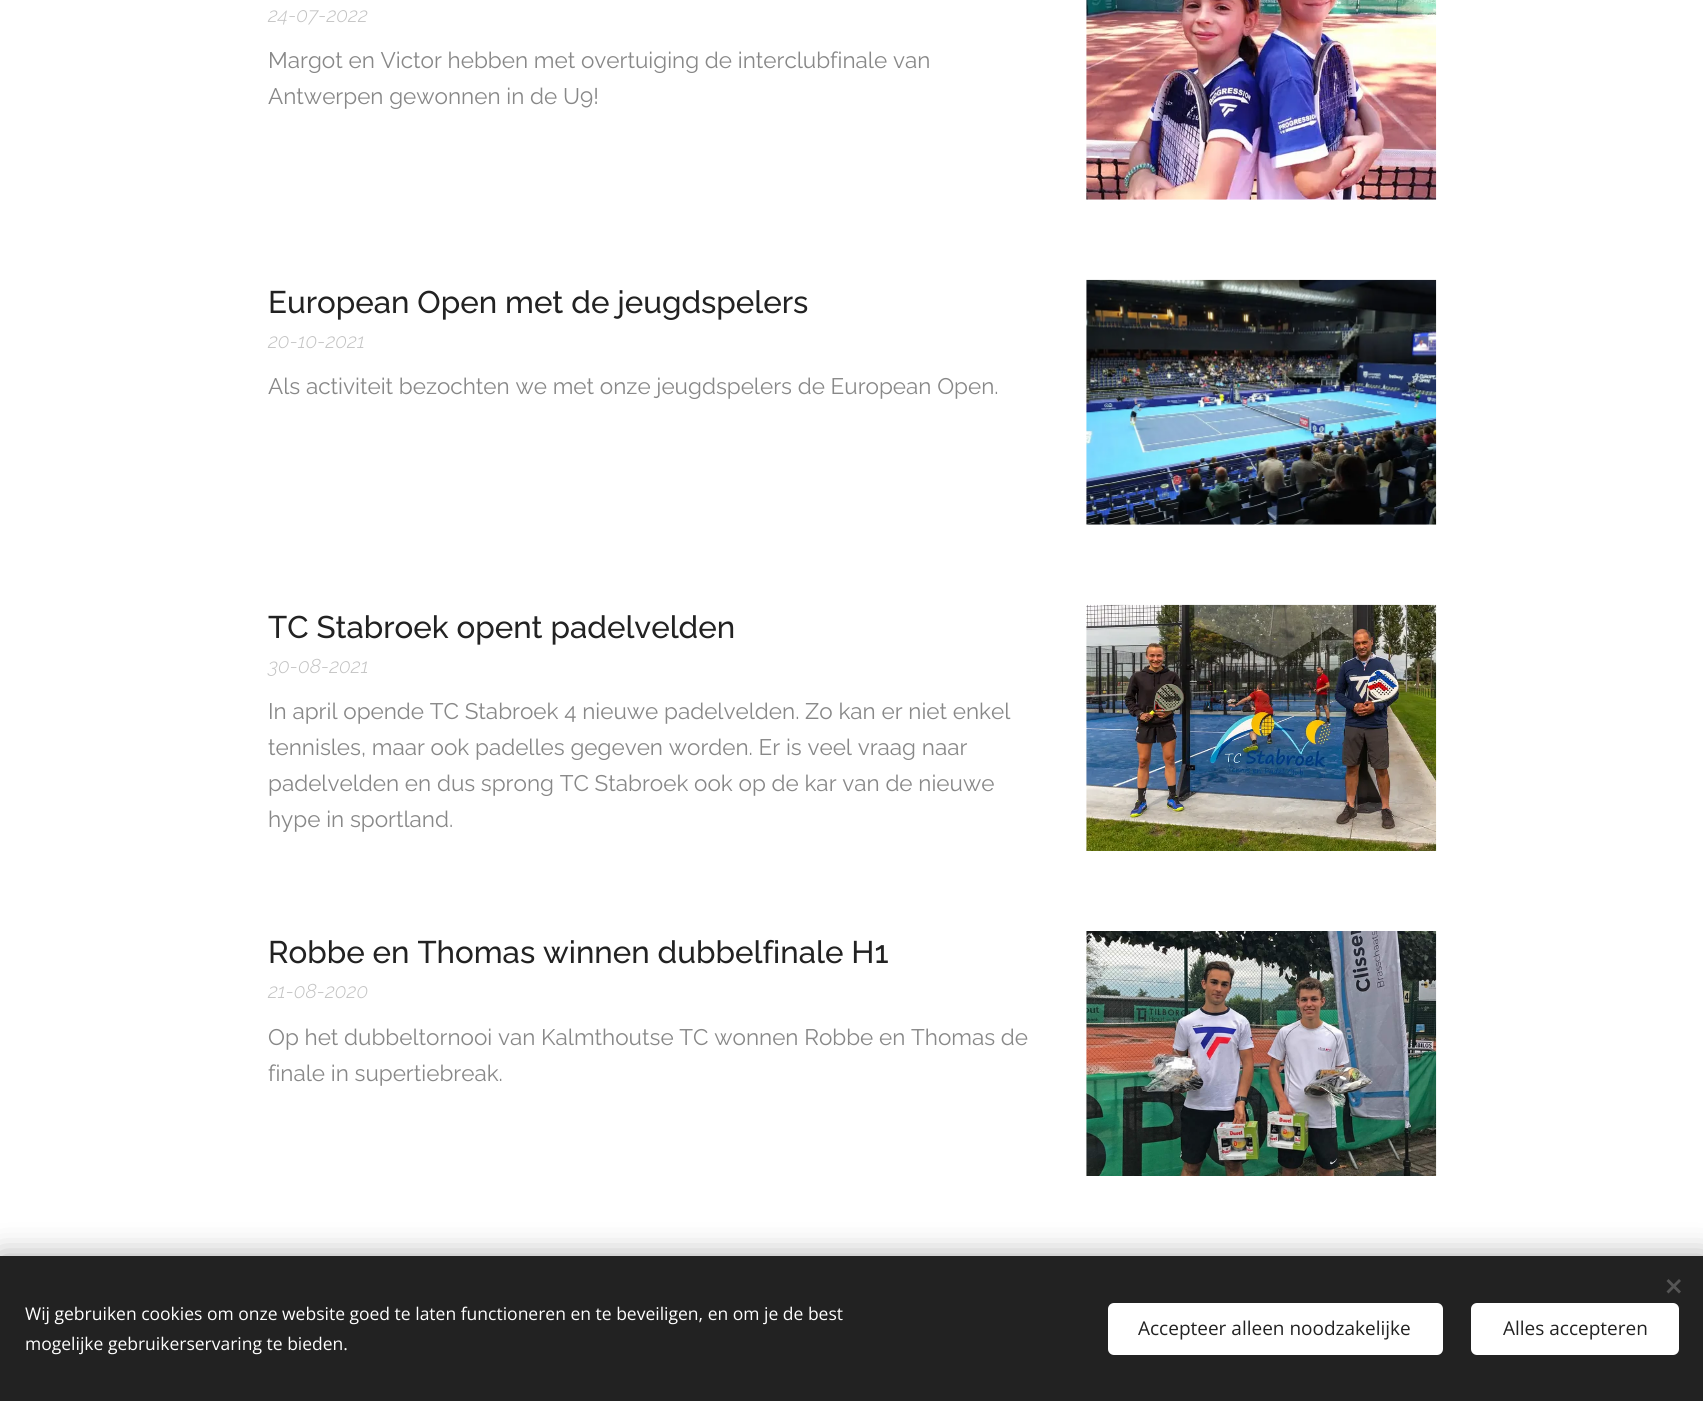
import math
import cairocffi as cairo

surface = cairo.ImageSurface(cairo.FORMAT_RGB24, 1703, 1401)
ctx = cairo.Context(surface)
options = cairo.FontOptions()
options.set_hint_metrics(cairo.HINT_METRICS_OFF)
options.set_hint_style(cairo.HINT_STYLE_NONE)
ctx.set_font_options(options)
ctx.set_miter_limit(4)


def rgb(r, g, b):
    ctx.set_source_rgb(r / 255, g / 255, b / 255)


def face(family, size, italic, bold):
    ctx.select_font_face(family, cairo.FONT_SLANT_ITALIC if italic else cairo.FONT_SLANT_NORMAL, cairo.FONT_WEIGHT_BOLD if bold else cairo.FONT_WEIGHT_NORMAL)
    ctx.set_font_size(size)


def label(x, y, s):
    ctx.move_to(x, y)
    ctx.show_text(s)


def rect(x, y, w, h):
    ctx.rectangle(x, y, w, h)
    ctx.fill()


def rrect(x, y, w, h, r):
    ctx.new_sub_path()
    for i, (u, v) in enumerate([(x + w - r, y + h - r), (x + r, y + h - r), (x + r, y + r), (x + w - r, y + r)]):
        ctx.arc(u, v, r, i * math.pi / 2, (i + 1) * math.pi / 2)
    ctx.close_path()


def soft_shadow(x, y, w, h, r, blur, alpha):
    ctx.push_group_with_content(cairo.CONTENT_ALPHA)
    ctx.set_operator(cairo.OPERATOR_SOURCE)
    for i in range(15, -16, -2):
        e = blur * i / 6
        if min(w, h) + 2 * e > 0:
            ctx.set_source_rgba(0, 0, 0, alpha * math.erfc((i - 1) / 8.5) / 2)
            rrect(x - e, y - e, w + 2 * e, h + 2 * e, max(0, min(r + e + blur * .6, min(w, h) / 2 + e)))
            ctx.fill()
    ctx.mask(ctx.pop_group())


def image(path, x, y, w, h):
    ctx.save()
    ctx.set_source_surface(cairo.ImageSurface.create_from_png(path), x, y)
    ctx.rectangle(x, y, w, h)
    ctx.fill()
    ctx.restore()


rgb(255, 255, 255)
ctx.paint()
face('Raleway Light', 20, 1, 0)
rgb(195, 195, 195)
label(268, 22, '24-07-2022')
face('Raleway', 22.5, 0, 0)
rgb(136, 136, 136)
label(268, 68, 'Margot en Victor hebben met overtuiging de interclubfinale van')
label(268, 104, 'Antwerpen gewonnen in de U9!')
image('image0.png', 1086, 0, 351, 200)
face('Raleway Medium', 31.25, 0, 0)
rgb(34, 34, 34)
label(268, 313, 'European Open met de jeugdspelers')
face('Raleway Light', 20, 1, 0)
rgb(195, 195, 195)
label(268, 348, '20-10-2021')
face('Raleway', 22.5, 0, 0)
rgb(136, 136, 136)
label(268, 394, 'Als activiteit bezochten we met onze jeugdspelers de European Open.')
image('image1.png', 1086, 279, 351, 246)
face('Raleway Medium', 31.25, 0, 0)
rgb(34, 34, 34)
label(268, 638, 'TC Stabroek opent padelvelden')
face('Raleway Light', 20, 1, 0)
rgb(195, 195, 195)
label(268, 673, '30-08-2021')
face('Raleway', 22.5, 0, 0)
rgb(136, 136, 136)
label(268, 719, 'In april opende TC Stabroek 4 nieuwe padelvelden. Zo kan er niet enkel')
label(268, 755, 'tennisles, maar ook padelles gegeven worden. Er is veel vraag naar')
label(268, 791, 'padelvelden en dus sprong TC Stabroek ook op de kar van de nieuwe')
label(268, 827, 'hype in sportland.')
image('image2.png', 1086, 604, 351, 247)
face('Raleway Medium', 31.25, 0, 0)
rgb(34, 34, 34)
label(268, 963, 'Robbe en Thomas winnen dubbelfinale H1')
face('Raleway Light', 20, 1, 0)
rgb(195, 195, 195)
label(268, 998, '21-08-2020')
face('Raleway', 22.5, 0, 0)
rgb(136, 136, 136)
label(268, 1045, 'Op het dubbeltornooi van Kalmthoutse TC wonnen Robbe en Thomas de')
label(268, 1081, 'finale in supertiebreak.')
image('image3.png', 1086, 931, 351, 245)
rgb(0, 0, 0)
soft_shadow(0, 1256, 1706, 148, 0, 15.5, 0.33)
rgb(34, 34, 34)
rect(0, 1256, 1703, 145)
rgb(85, 85, 85)
ctx.new_path()
ctx.move_to(1666.5, 1291.5)
ctx.line_to(1679, 1279)
ctx.line_to(1681, 1281)
ctx.line_to(1668.5, 1293.5)
ctx.close_path()
ctx.fill()
ctx.new_path()
ctx.move_to(1668.5, 1279)
ctx.line_to(1681, 1291.5)
ctx.line_to(1679, 1293.5)
ctx.line_to(1666.5, 1281)
ctx.close_path()
ctx.fill()
face('Open Sans', 17.5, 0, 0)
rgb(255, 255, 255)
label(25, 1320, 'Wij gebruiken cookies om onze website goed te laten functioneren en te beveiligen, en om je de best')
label(25, 1350, 'mogelijke gebruikerservaring te bieden.')
rrect(1108, 1303, 335, 52, 6)
ctx.fill()
face('Open Sans', 19, 0, 0)
rgb(34, 34, 34)
label(1138, 1335, 'Accepteer alleen noodzakelijke')
rgb(255, 255, 255)
rrect(1471, 1303, 208, 52, 6)
ctx.fill()
rgb(34, 34, 34)
label(1503, 1335, 'Alles accepteren')
surface.write_to_png('render.png')
